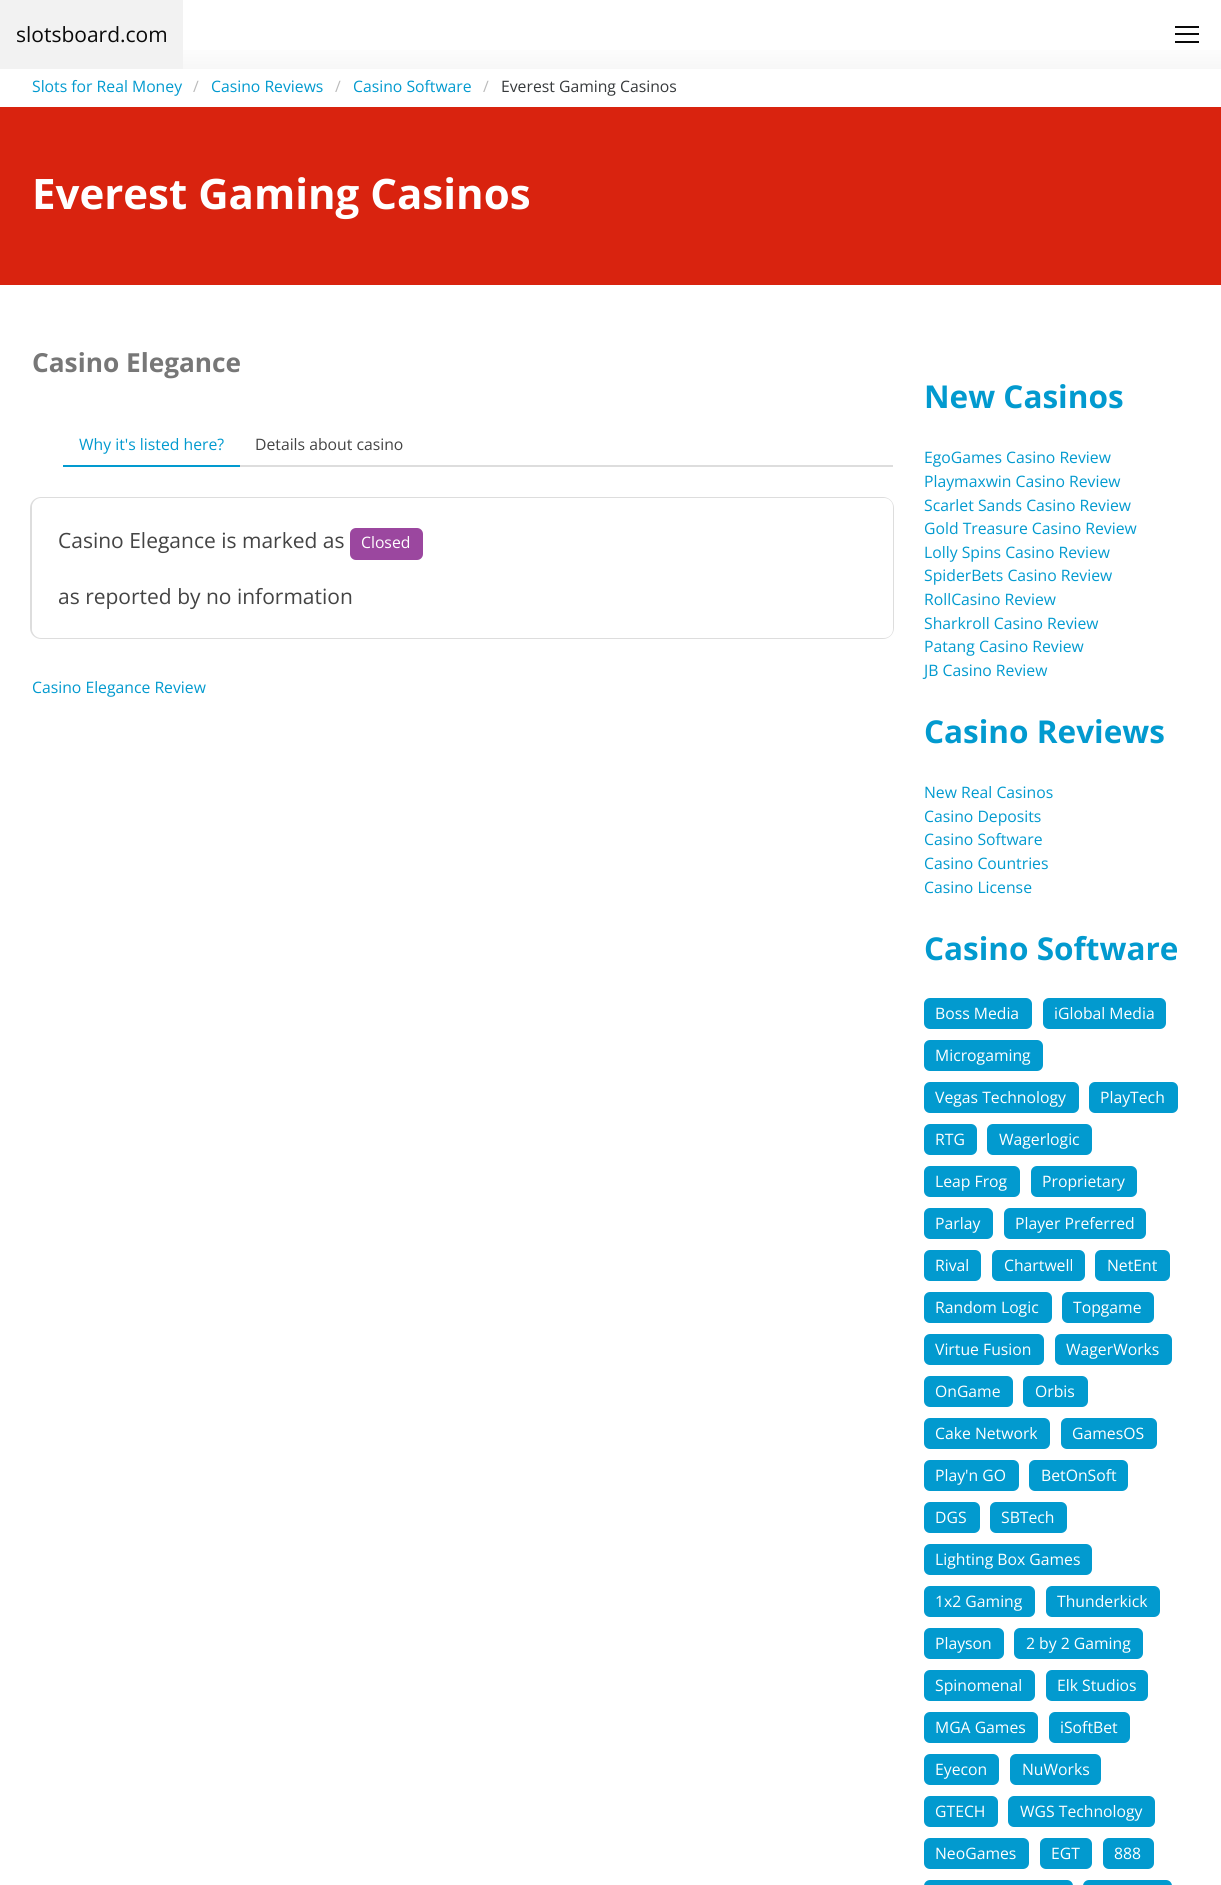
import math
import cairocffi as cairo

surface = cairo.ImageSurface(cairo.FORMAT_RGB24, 1221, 1885)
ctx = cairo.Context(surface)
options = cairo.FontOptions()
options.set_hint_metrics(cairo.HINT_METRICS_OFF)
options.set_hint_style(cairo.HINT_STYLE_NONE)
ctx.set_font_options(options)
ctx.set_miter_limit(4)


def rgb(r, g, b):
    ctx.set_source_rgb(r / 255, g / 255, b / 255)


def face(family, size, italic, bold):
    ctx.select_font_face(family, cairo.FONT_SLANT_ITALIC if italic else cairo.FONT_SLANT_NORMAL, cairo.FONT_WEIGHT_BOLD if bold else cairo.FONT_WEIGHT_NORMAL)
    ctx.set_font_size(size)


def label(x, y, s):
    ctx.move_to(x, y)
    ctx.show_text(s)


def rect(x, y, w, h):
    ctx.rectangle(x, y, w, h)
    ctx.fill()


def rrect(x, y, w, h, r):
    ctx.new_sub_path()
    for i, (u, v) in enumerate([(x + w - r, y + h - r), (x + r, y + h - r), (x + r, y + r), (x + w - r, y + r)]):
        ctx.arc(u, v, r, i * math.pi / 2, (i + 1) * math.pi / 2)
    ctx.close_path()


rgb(255, 255, 255)
ctx.paint()
gradient = cairo.LinearGradient(611, 0, 611, 69)
gradient.add_color_stop_rgba(0, 1, 1, 1, 1)
gradient.add_color_stop_rgba(0.6, 1, 1, 1, 1)
gradient.add_color_stop_rgba(1, 0.969, 0.969, 0.969, 1)
ctx.set_source(gradient)
rect(183, 50, 1038, 19)
rgb(242, 242, 242)
rect(0, 0, 183, 69)
face('Open Sans', 21, 0, 0)
rgb(10, 10, 10)
label(16, 42, 'slotsboard.com')
rect(1175, 26, 24, 2)
rect(1175, 33, 24, 2)
rect(1175, 41, 24, 2)
face('Open Sans', 15.75, 0, 0)
rgb(2, 154, 207)
label(32, 92, 'Slots for Real Money')
rgb(187, 187, 187)
label(193, 92, '/')
rgb(2, 154, 207)
label(211, 92, 'Casino Reviews')
rgb(187, 187, 187)
label(335, 92, '/')
rgb(2, 154, 207)
label(353, 92, 'Casino Software')
rgb(187, 187, 187)
label(483, 92, '/')
rgb(55, 58, 60)
label(501, 92, 'Everest Gaming Casinos')
rgb(217, 35, 15)
rect(0, 107, 1221, 178)
face('Open Sans', 42, 0, 1)
rgb(255, 255, 255)
label(32, 209, 'Everest Gaming Casinos')
face('Open Sans', 26.25, 0, 1)
rgb(119, 119, 119)
label(32, 372, 'Casino Elegance')
rgb(221, 221, 221)
rect(240, 465, 653, 2)
rgb(2, 154, 207)
rect(63, 465, 177, 2)
face('Open Sans', 15.75, 0, 0)
label(79, 450, 'Why it\'s listed here?')
rgb(68, 68, 68)
label(255, 450, 'Details about casino')
rrect(31, 498, 862, 140, 10)
rgb(221, 221, 221)
ctx.stroke()
rgb(255, 255, 255)
rrect(32, 498, 861, 140, 9)
ctx.fill()
face('Open Sans', 21, 0, 0)
rgb(68, 68, 68)
label(58, 548, 'Casino Elegance is marked as')
rgb(155, 71, 159)
rrect(350, 528, 73, 32, 6)
ctx.fill()
face('Open Sans', 15.75, 0, 0)
rgb(255, 255, 255)
label(361, 548, 'Closed')
face('Open Sans', 21, 0, 0)
rgb(68, 68, 68)
label(58, 604, 'as reported by no information')
face('Open Sans', 15.75, 0, 0)
rgb(2, 154, 207)
label(32, 693, 'Casino Elegance Review')
face('Open Sans', 31.5, 0, 1)
label(924, 408, 'New Casinos')
face('Open Sans', 15.75, 0, 0)
label(924, 463, 'EgoGames Casino Review')
label(924, 487, 'Playmaxwin Casino Review')
label(924, 511, 'Scarlet Sands Casino Review')
label(924, 534, 'Gold Treasure Casino Review')
label(924, 558, 'Lolly Spins Casino Review')
label(924, 581, 'SpiderBets Casino Review')
label(924, 605, 'RollCasino Review')
label(924, 629, 'Sharkroll Casino Review')
label(924, 652, 'Patang Casino Review')
label(924, 676, 'JB Casino Review')
face('Open Sans', 31.5, 0, 1)
label(924, 743, 'Casino Reviews')
face('Open Sans', 15.75, 0, 0)
label(924, 798, 'New Real Casinos')
label(924, 822, 'Casino Deposits')
label(924, 845, 'Casino Software')
label(924, 869, 'Casino Countries')
label(924, 893, 'Casino License')
face('Open Sans', 31.5, 0, 1)
label(924, 960, 'Casino Software')
rrect(924, 998, 108, 31, 6)
ctx.fill()
face('Open Sans', 15.75, 0, 0)
rgb(255, 255, 255)
label(935, 1019, 'Boss Media')
rgb(2, 154, 207)
rrect(1043, 998, 123, 31, 6)
ctx.fill()
rgb(255, 255, 255)
label(1054, 1019, 'iGlobal Media')
rgb(2, 154, 207)
rrect(924, 1040, 119, 31, 6)
ctx.fill()
rgb(255, 255, 255)
label(935, 1061, 'Microgaming')
rgb(2, 154, 207)
rrect(924, 1082, 155, 31, 6)
ctx.fill()
rgb(255, 255, 255)
label(935, 1103, 'Vegas Technology')
rgb(2, 154, 207)
rrect(1089, 1082, 89, 31, 6)
ctx.fill()
rgb(255, 255, 255)
label(1100, 1103, 'PlayTech')
rgb(2, 154, 207)
rrect(924, 1124, 53, 31, 6)
ctx.fill()
rgb(255, 255, 255)
label(935, 1145, 'RTG')
rgb(2, 154, 207)
rrect(987, 1124, 105, 31, 6)
ctx.fill()
rgb(255, 255, 255)
label(999, 1145, 'Wagerlogic')
rgb(2, 154, 207)
rrect(924, 1166, 96, 31, 6)
ctx.fill()
rgb(255, 255, 255)
label(935, 1187, 'Leap Frog')
rgb(2, 154, 207)
rrect(1031, 1166, 106, 31, 6)
ctx.fill()
rgb(255, 255, 255)
label(1042, 1187, 'Proprietary')
rgb(2, 154, 207)
rrect(924, 1208, 69, 31, 6)
ctx.fill()
rgb(255, 255, 255)
label(935, 1229, 'Parlay')
rgb(2, 154, 207)
rrect(1004, 1208, 142, 31, 6)
ctx.fill()
rgb(255, 255, 255)
label(1015, 1229, 'Player Preferred')
rgb(2, 154, 207)
rrect(924, 1250, 57, 31, 6)
ctx.fill()
rgb(255, 255, 255)
label(935, 1271, 'Rival')
rgb(2, 154, 207)
rrect(992, 1250, 93, 31, 6)
ctx.fill()
rgb(255, 255, 255)
label(1004, 1271, 'Chartwell')
rgb(2, 154, 207)
rrect(1095, 1250, 75, 31, 6)
ctx.fill()
rgb(255, 255, 255)
label(1107, 1271, 'NetEnt')
rgb(2, 154, 207)
rrect(924, 1292, 128, 31, 6)
ctx.fill()
rgb(255, 255, 255)
label(935, 1313, 'Random Logic')
rgb(2, 154, 207)
rrect(1062, 1292, 92, 31, 6)
ctx.fill()
rgb(255, 255, 255)
label(1073, 1313, 'Topgame')
rgb(2, 154, 207)
rrect(924, 1334, 120, 31, 6)
ctx.fill()
rgb(255, 255, 255)
label(935, 1355, 'Virtue Fusion')
rgb(2, 154, 207)
rrect(1055, 1334, 117, 31, 6)
ctx.fill()
rgb(255, 255, 255)
label(1066, 1355, 'WagerWorks')
rgb(2, 154, 207)
rrect(924, 1376, 89, 31, 6)
ctx.fill()
rgb(255, 255, 255)
label(935, 1397, 'OnGame')
rgb(2, 154, 207)
rrect(1023, 1376, 65, 31, 6)
ctx.fill()
rgb(255, 255, 255)
label(1035, 1397, 'Orbis')
rgb(2, 154, 207)
rrect(924, 1418, 126, 31, 6)
ctx.fill()
rgb(255, 255, 255)
label(935, 1439, 'Cake Network')
rgb(2, 154, 207)
rrect(1061, 1418, 96, 31, 6)
ctx.fill()
rgb(255, 255, 255)
label(1072, 1439, 'GamesOS')
rgb(2, 154, 207)
rrect(924, 1460, 95, 31, 6)
ctx.fill()
rgb(255, 255, 255)
label(935, 1481, 'Play\'n GO')
rgb(2, 154, 207)
rrect(1029, 1460, 99, 31, 6)
ctx.fill()
rgb(255, 255, 255)
label(1041, 1481, 'BetOnSoft')
rgb(2, 154, 207)
rrect(924, 1502, 56, 31, 6)
ctx.fill()
rgb(255, 255, 255)
label(935, 1523, 'DGS')
rgb(2, 154, 207)
rrect(990, 1502, 77, 31, 6)
ctx.fill()
rgb(255, 255, 255)
label(1001, 1523, 'SBTech')
rgb(2, 154, 207)
rrect(924, 1544, 168, 31, 6)
ctx.fill()
rgb(255, 255, 255)
label(935, 1565, 'Lighting Box Games')
rgb(2, 154, 207)
rrect(924, 1586, 111, 31, 6)
ctx.fill()
rgb(255, 255, 255)
label(935, 1607, '1x2 Gaming')
rgb(2, 154, 207)
rrect(1046, 1586, 114, 31, 6)
ctx.fill()
rgb(255, 255, 255)
label(1057, 1607, 'Thunderkick')
rgb(2, 154, 207)
rrect(924, 1628, 80, 31, 6)
ctx.fill()
rgb(255, 255, 255)
label(935, 1649, 'Playson')
rgb(2, 154, 207)
rrect(1014, 1628, 129, 31, 6)
ctx.fill()
rgb(255, 255, 255)
label(1026, 1649, '2 by 2 Gaming')
rgb(2, 154, 207)
rrect(924, 1670, 111, 31, 6)
ctx.fill()
rgb(255, 255, 255)
label(935, 1691, 'Spinomenal')
rgb(2, 154, 207)
rrect(1046, 1670, 102, 31, 6)
ctx.fill()
rgb(255, 255, 255)
label(1057, 1691, 'Elk Studios')
rgb(2, 154, 207)
rrect(924, 1712, 114, 31, 6)
ctx.fill()
rgb(255, 255, 255)
label(935, 1733, 'MGA Games')
rgb(2, 154, 207)
rrect(1049, 1712, 81, 31, 6)
ctx.fill()
rgb(255, 255, 255)
label(1060, 1733, 'iSoftBet')
rgb(2, 154, 207)
rrect(924, 1754, 75, 31, 6)
ctx.fill()
rgb(255, 255, 255)
label(935, 1775, 'Eyecon')
rgb(2, 154, 207)
rrect(1010, 1754, 91, 31, 6)
ctx.fill()
rgb(255, 255, 255)
label(1022, 1775, 'NuWorks')
rgb(2, 154, 207)
rrect(924, 1796, 74, 31, 6)
ctx.fill()
rgb(255, 255, 255)
label(935, 1817, 'GTECH')
rgb(2, 154, 207)
rrect(1008, 1796, 147, 31, 6)
ctx.fill()
rgb(255, 255, 255)
label(1020, 1817, 'WGS Technology')
rgb(2, 154, 207)
rrect(924, 1838, 105, 31, 6)
ctx.fill()
rgb(255, 255, 255)
label(935, 1859, 'NeoGames')
rgb(2, 154, 207)
rrect(1040, 1838, 52, 31, 6)
ctx.fill()
rgb(255, 255, 255)
label(1051, 1859, 'EGT')
rgb(2, 154, 207)
rrect(1103, 1838, 51, 31, 6)
ctx.fill()
rgb(255, 255, 255)
label(1114, 1859, '888')
rgb(2, 154, 207)
rrect(924, 1880, 149, 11, 6)
ctx.fill()
rrect(1083, 1880, 89, 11, 6)
ctx.fill()
surface.write_to_png('render.png')
